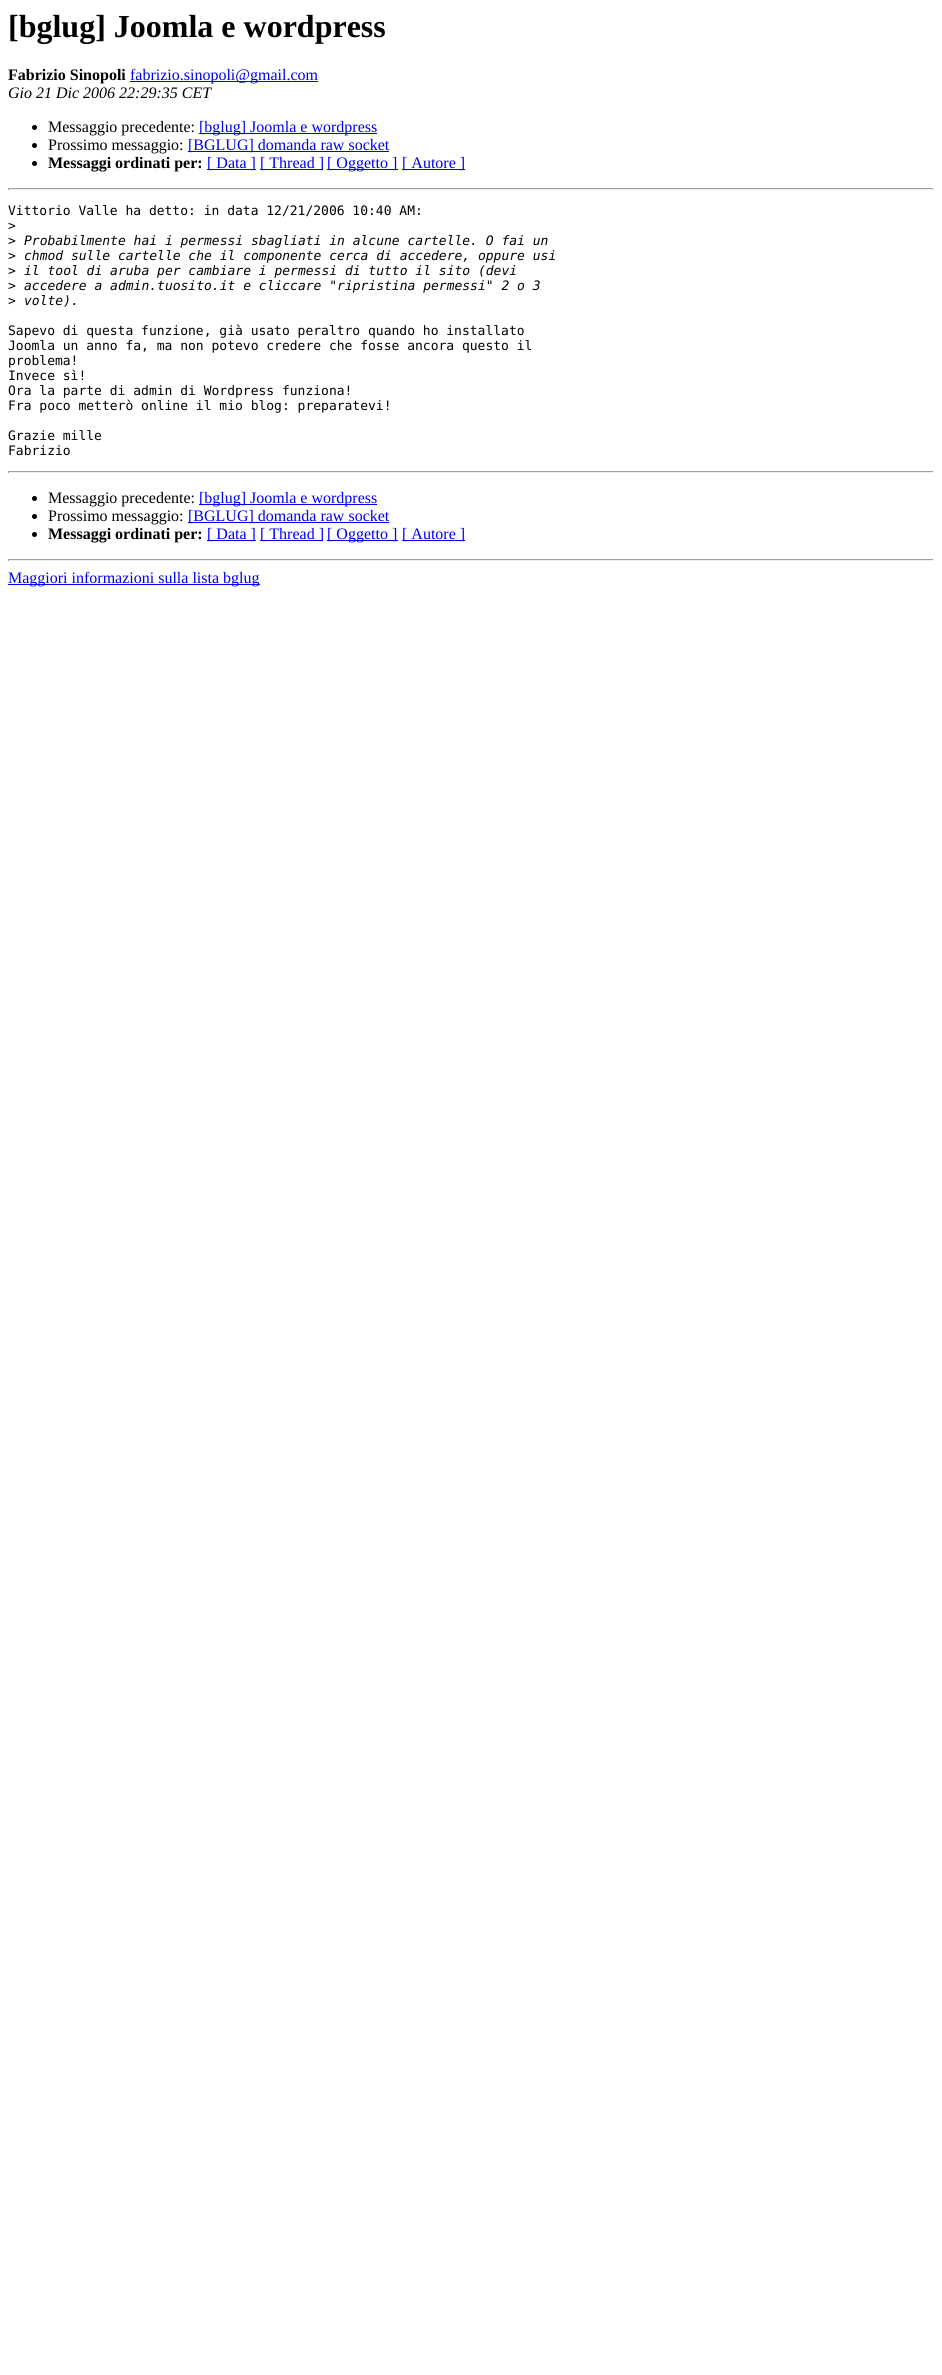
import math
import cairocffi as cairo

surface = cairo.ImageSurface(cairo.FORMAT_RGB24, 942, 2375)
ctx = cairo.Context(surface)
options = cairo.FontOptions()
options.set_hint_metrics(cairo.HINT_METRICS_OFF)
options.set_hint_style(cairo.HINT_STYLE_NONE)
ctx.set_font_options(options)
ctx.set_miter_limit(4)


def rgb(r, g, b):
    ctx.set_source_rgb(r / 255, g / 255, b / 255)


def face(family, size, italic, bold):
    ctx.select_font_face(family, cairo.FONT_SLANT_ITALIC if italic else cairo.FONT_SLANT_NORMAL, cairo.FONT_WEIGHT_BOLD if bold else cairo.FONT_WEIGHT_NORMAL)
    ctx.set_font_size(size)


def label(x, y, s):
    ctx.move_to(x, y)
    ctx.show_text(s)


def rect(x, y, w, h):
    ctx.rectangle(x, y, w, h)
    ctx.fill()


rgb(255, 255, 255)
ctx.paint()
face('Liberation Serif', 32, 0, 1)
rgb(0, 0, 0)
label(8, 37, '[bglug] Joomla e wordpress')
face('Liberation Serif', 16, 0, 1)
label(8, 80, 'Fabrizio Sinopoli')
rgb(0, 0, 238)
rect(130, 81, 188, 1)
face('Liberation Serif', 16, 0, 0)
label(130, 80, 'fabrizio.sinopoli@gmail.com')
face('Liberation Serif', 16, 1, 0)
rgb(0, 0, 0)
label(8, 98, 'Gio 21 Dic 2006 22:29:35 CET')
ctx.new_path()
ctx.arc(34.5, 127.5, 2.5, 0, 2 * math.pi)
ctx.fill()
face('Liberation Serif', 16, 0, 0)
label(48, 132, 'Messaggio precedente:')
rgb(0, 0, 238)
rect(199, 133, 178, 1)
label(199, 132, '[bglug] Joomla e wordpress')
rgb(0, 0, 0)
ctx.new_path()
ctx.arc(34.5, 145.5, 2.5, 0, 2 * math.pi)
ctx.fill()
label(48, 150, 'Prossimo messaggio:')
rgb(0, 0, 238)
rect(188, 151, 201, 1)
label(188, 150, '[BGLUG] domanda raw socket')
rgb(0, 0, 0)
ctx.new_path()
ctx.arc(34.5, 163.5, 2.5, 0, 2 * math.pi)
ctx.fill()
face('Liberation Serif', 16, 0, 1)
label(48, 168, 'Messaggi ordinati per:')
rgb(0, 0, 238)
rect(207, 169, 49, 1)
face('Liberation Serif', 16, 0, 0)
label(207, 168, '[ Data ]')
rect(260, 169, 63, 1)
label(260, 168, '[ Thread ]')
rect(327, 169, 71, 1)
label(327, 168, '[ Oggetto ]')
rect(402, 169, 63, 1)
label(402, 168, '[ Autore ]')
rgb(159, 159, 159)
rect(8, 188, 926, 1)
rgb(238, 238, 238)
rect(933, 188, 1, 2)
rect(8, 189, 926, 1)
rgb(159, 159, 159)
rect(8, 188, 1, 2)
face('DejaVu Sans Mono', 13, 0, 0)
rgb(0, 0, 0)
label(8, 215, 'Vittorio Valle ha detto: in data 12/21/2006 10:40 AM:')
label(8, 230, '>')
label(8, 245, '>')
face('DejaVu Sans Mono', 13, 1, 0)
label(24, 245, 'Probabilmente hai i permessi sbagliati in alcune cartelle. O fai un')
face('DejaVu Sans Mono', 13, 0, 0)
label(8, 260, '>')
face('DejaVu Sans Mono', 13, 1, 0)
label(24, 260, 'chmod sulle cartelle che il componente cerca di accedere, oppure usi')
face('DejaVu Sans Mono', 13, 0, 0)
label(8, 275, '>')
face('DejaVu Sans Mono', 13, 1, 0)
label(24, 275, 'il tool di aruba per cambiare i permessi di tutto il sito (devi')
face('DejaVu Sans Mono', 13, 0, 0)
label(8, 290, '>')
face('DejaVu Sans Mono', 13, 1, 0)
label(24, 290, 'accedere a admin.tuosito.it e cliccare "ripristina permessi" 2 o 3')
face('DejaVu Sans Mono', 13, 0, 0)
label(8, 305, '>')
face('DejaVu Sans Mono', 13, 1, 0)
label(24, 305, 'volte).')
face('DejaVu Sans Mono', 13, 0, 0)
label(8, 335, 'Sapevo di questa funzione, già usato peraltro quando ho installato')
label(8, 350, 'Joomla un anno fa, ma non potevo credere che fosse ancora questo il')
label(8, 365, 'problema!')
label(8, 380, 'Invece sì!')
label(8, 395, 'Ora la parte di admin di Wordpress funziona!')
label(8, 410, 'Fra poco metterò online il mio blog: preparatevi!')
label(8, 440, 'Grazie mille')
label(8, 455, 'Fabrizio')
rgb(159, 159, 159)
rect(8, 471, 926, 1)
rgb(238, 238, 238)
rect(933, 471, 1, 2)
rect(8, 472, 926, 1)
rgb(159, 159, 159)
rect(8, 471, 1, 2)
rgb(0, 0, 0)
ctx.new_path()
ctx.arc(34.5, 498.5, 2.5, 0, 2 * math.pi)
ctx.fill()
face('Liberation Serif', 16, 0, 0)
label(48, 503, 'Messaggio precedente:')
rgb(0, 0, 238)
rect(199, 504, 178, 1)
label(199, 503, '[bglug] Joomla e wordpress')
rgb(0, 0, 0)
ctx.new_path()
ctx.arc(34.5, 516.5, 2.5, 0, 2 * math.pi)
ctx.fill()
label(48, 521, 'Prossimo messaggio:')
rgb(0, 0, 238)
rect(188, 522, 201, 1)
label(188, 521, '[BGLUG] domanda raw socket')
rgb(0, 0, 0)
ctx.new_path()
ctx.arc(34.5, 534.5, 2.5, 0, 2 * math.pi)
ctx.fill()
face('Liberation Serif', 16, 0, 1)
label(48, 539, 'Messaggi ordinati per:')
rgb(0, 0, 238)
rect(207, 540, 49, 1)
face('Liberation Serif', 16, 0, 0)
label(207, 539, '[ Data ]')
rect(260, 540, 63, 1)
label(260, 539, '[ Thread ]')
rect(327, 540, 71, 1)
label(327, 539, '[ Oggetto ]')
rect(402, 540, 63, 1)
label(402, 539, '[ Autore ]')
rgb(159, 159, 159)
rect(8, 559, 926, 1)
rgb(238, 238, 238)
rect(933, 559, 1, 2)
rect(8, 560, 926, 1)
rgb(159, 159, 159)
rect(8, 559, 1, 2)
rgb(0, 0, 238)
rect(8, 584, 252, 1)
label(8, 583, 'Maggiori informazioni sulla lista bglug')
surface.write_to_png('render.png')
